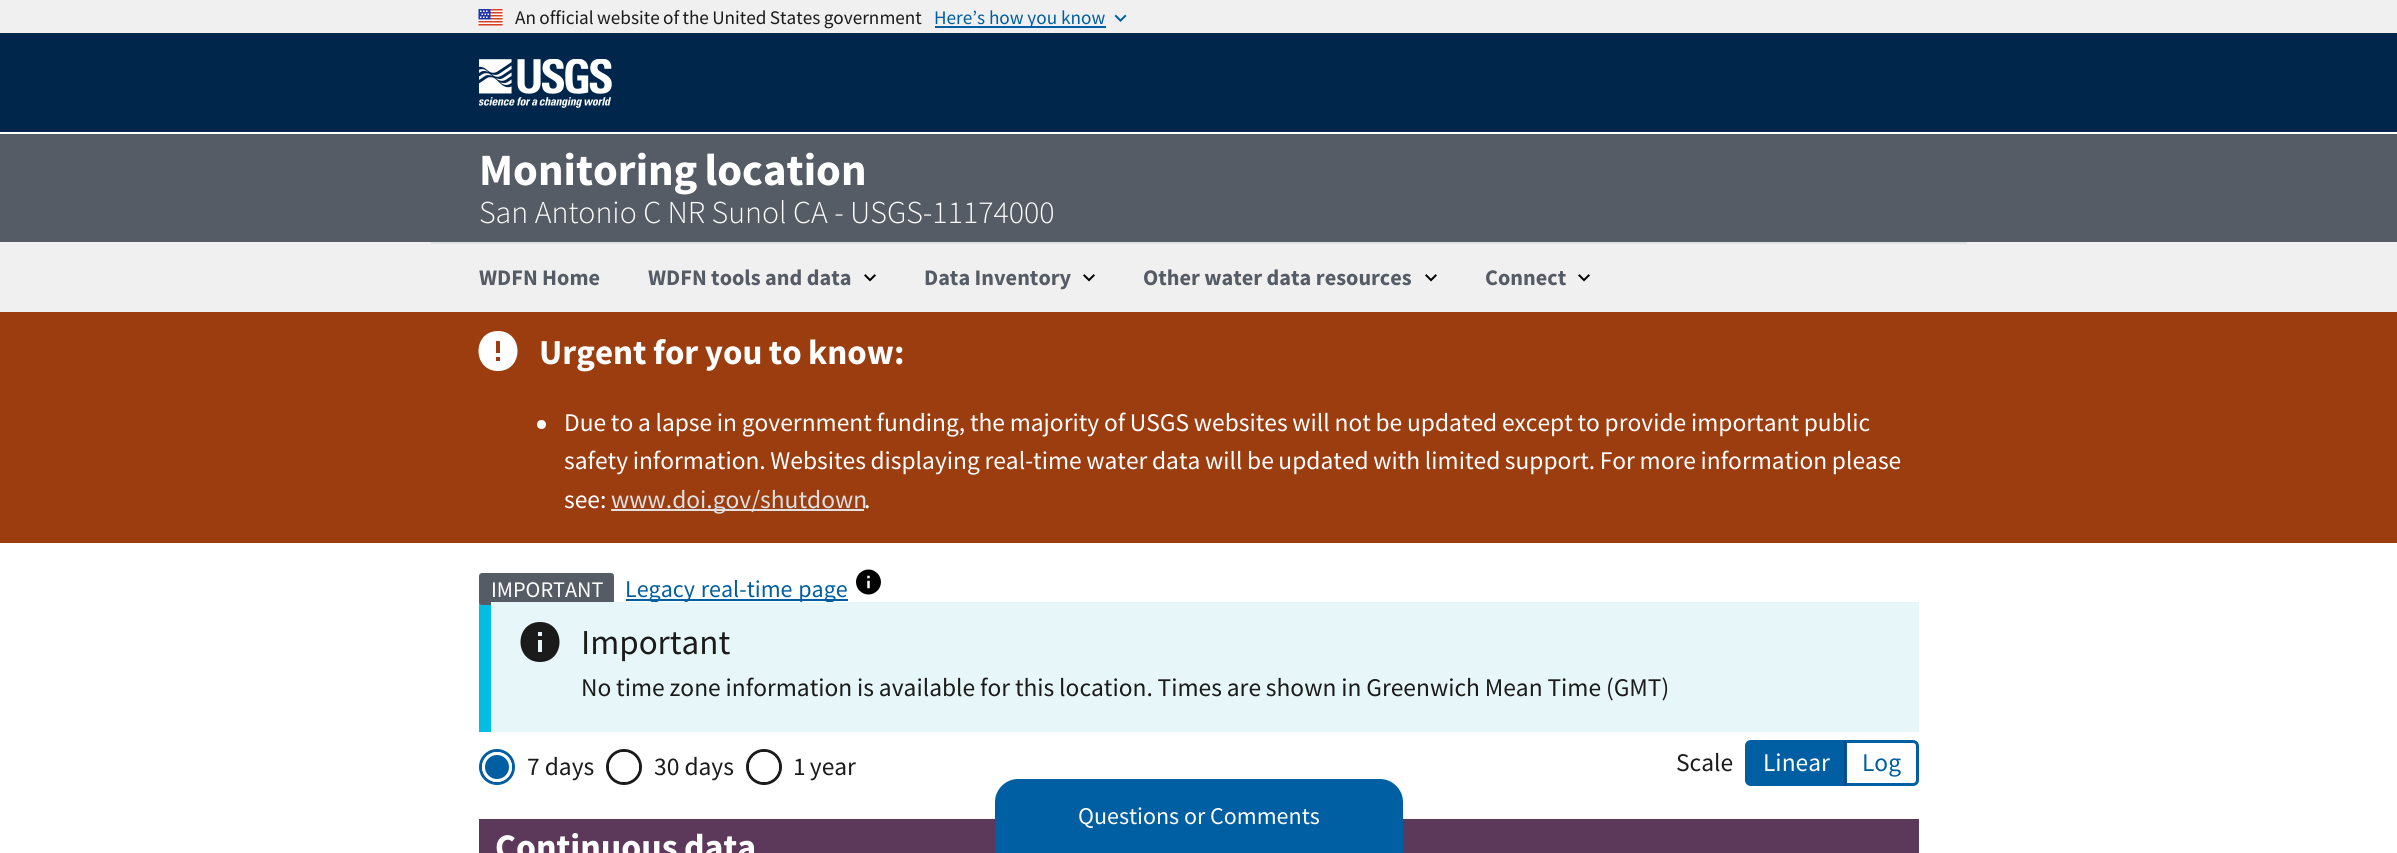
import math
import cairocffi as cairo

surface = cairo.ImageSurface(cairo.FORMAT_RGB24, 2397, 853)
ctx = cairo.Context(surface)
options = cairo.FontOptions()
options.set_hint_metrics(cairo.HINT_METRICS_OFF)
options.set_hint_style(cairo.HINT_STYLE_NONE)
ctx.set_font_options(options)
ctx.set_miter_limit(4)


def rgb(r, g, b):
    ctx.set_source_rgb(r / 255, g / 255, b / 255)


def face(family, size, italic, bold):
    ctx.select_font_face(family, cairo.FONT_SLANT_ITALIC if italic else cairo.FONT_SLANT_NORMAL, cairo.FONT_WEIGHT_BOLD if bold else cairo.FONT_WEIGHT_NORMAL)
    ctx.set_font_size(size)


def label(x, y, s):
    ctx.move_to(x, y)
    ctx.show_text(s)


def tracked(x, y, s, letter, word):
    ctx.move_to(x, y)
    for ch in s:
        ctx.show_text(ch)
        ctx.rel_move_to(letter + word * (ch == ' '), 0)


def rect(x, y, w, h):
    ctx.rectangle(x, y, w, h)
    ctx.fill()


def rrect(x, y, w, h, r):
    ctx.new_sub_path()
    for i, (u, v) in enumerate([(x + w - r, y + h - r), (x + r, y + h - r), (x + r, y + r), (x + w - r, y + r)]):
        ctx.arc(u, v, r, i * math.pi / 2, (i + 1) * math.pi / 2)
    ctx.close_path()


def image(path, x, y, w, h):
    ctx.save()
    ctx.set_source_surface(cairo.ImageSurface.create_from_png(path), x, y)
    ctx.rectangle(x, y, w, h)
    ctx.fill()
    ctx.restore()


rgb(255, 255, 255)
ctx.paint()
rgb(240, 240, 240)
rect(0, 0, 2397, 33)
image('image0.png', 478, 9, 25, 17)
face('Source Sans Pro', 19.2, 0, 0)
rgb(27, 27, 27)
tracked(515, 24, 'An official website of the United States government', 0, -0.5)
rgb(0, 94, 162)
rect(935, 26, 171, 2)
label(934, 24, 'Here’s how you know')
image('image1.png', 1114, 14, 13, 8)
rgb(0, 38, 76)
rect(0, 33, 2397, 99)
image('image2.png', 479, 59, 133, 49)
rgb(86, 92, 101)
rect(0, 134, 2397, 108)
face('Source Sans Pro', 44.75, 0, 1)
rgb(255, 255, 255)
tracked(479, 185, 'Monitoring location', 0, -2)
face('Source Sans Pro Light', 31.9, 0, 0)
label(479, 223, 'San Antonio C NR Sunol CA - USGS-11174000')
rgb(240, 240, 240)
rect(0, 242, 2397, 70)
rgb(223, 225, 226)
rect(431, 242, 1536, 2)
face('Source Sans Pro', 22.25, 0, 1)
rgb(86, 92, 101)
label(479, 285, 'WDFN Home')
label(648, 285, 'WDFN tools and data')
image('image3.png', 864, 274, 12, 8)
label(924, 285, 'Data Inventory')
image('image3.png', 1083, 274, 12, 8)
label(1143, 285, 'Other water data resources')
image('image3.png', 1425, 274, 12, 8)
label(1485, 285, 'Connect')
image('image3.png', 1578, 274, 12, 8)
rgb(156, 61, 16)
rect(0, 312, 2397, 231)
rgb(255, 255, 255)
ctx.new_path()
ctx.move_to(498, 331)
ctx.curve_to(472, 331, 472, 371, 498, 371)
ctx.curve_to(524, 371, 524, 331, 498, 331)
ctx.close_path()
ctx.move_to(500, 361)
ctx.line_to(496, 361)
ctx.line_to(496, 357)
ctx.line_to(500, 357)
ctx.close_path()
ctx.move_to(500, 353)
ctx.line_to(496, 353)
ctx.line_to(496, 341)
ctx.line_to(500, 341)
ctx.close_path()
ctx.fill()
face('Source Sans Pro', 35, 0, 1)
tracked(539, 364, 'Urgent for you to know:', 0, -0.5)
ctx.new_path()
ctx.arc(541.5, 424.5, 4.5, 0, 2 * math.pi)
ctx.fill()
face('Source Sans Pro', 25.45, 0, 0)
tracked(564, 431, 'Due to a lapse in government funding, the majority of USGS websites will not be updated except to provide important public', 0, -0.4)
tracked(564, 469, 'safety information. Websites displaying real-time water data will be updated with limited support. For more information please', 0, -0.5)
label(564, 508, 'see:')
rgb(223, 225, 226)
rect(611, 509, 253, 2)
label(611, 508, 'www.doi.gov/shutdown')
rgb(255, 255, 255)
label(864, 508, '.')
rgb(0, 189, 227)
rect(479, 602, 12, 130)
rgb(86, 92, 101)
rrect(479, 573, 135, 32, 3)
ctx.fill()
face('Source Sans Pro', 22.25, 0, 0)
rgb(255, 255, 255)
label(491, 597, 'IMPORTANT')
rgb(0, 94, 162)
rect(626, 599, 222, 2)
face('Source Sans Pro', 24, 0, 0)
tracked(625, 597, 'Legacy real-time page', 0, 1)
image('image4.png', 856, 569, 25, 26)
rgb(231, 246, 248)
rect(491, 602, 1428, 130)
rgb(27, 27, 27)
ctx.new_path()
ctx.move_to(540, 622)
ctx.curve_to(514, 622, 514, 662, 540, 662)
ctx.curve_to(566, 662, 566, 622, 540, 622)
ctx.close_path()
ctx.move_to(542, 652)
ctx.line_to(538, 652)
ctx.line_to(538, 640)
ctx.line_to(542, 640)
ctx.close_path()
ctx.move_to(542, 636)
ctx.line_to(538, 636)
ctx.line_to(538, 632)
ctx.line_to(542, 632)
ctx.close_path()
ctx.fill()
face('Source Sans Pro', 35, 0, 0)
label(581, 654, 'Important')
face('Source Sans Pro', 25.45, 0, 0)
tracked(581, 696, 'No time zone information is available for this location. Times are shown in Greenwich Mean Time (GMT)', 0, -0.25)
ctx.new_path()
ctx.arc(497, 767, 16.5, 0, 2 * math.pi)
rgb(0, 94, 162)
ctx.set_line_width(3)
ctx.stroke()
ctx.arc(497, 767, 13.5, 0, 2 * math.pi)
ctx.fill_preserve()
rgb(255, 255, 255)
ctx.stroke()
rgb(27, 27, 27)
label(527, 775, '7 days')
ctx.new_path()
ctx.arc(624, 767, 16.5, 0, 2 * math.pi)
ctx.stroke()
rgb(255, 255, 255)
ctx.arc(624, 767, 15, 0, 2 * math.pi)
ctx.fill()
rgb(27, 27, 27)
label(654, 775, '30 days')
ctx.new_path()
ctx.arc(764, 767, 16.5, 0, 2 * math.pi)
ctx.stroke()
rgb(255, 255, 255)
ctx.arc(764, 767, 15, 0, 2 * math.pi)
ctx.fill()
rgb(27, 27, 27)
tracked(793, 775, '1 year', 0, -1)
label(1676, 771, 'Scale')
rgb(0, 94, 162)
ctx.new_path()
ctx.move_to(1751, 740)
ctx.line_to(1847, 740)
ctx.line_to(1847, 786)
ctx.line_to(1751, 786)
ctx.curve_to(1747.5, 786, 1745, 783.5, 1745, 780)
ctx.line_to(1745, 746)
ctx.curve_to(1745, 742.5, 1747.5, 740, 1751, 740)
ctx.close_path()
ctx.fill()
rgb(255, 255, 255)
label(1763, 771, 'Linear')
ctx.new_path()
ctx.move_to(1845.5, 741.5)
ctx.line_to(1913, 741.5)
ctx.curve_to(1915.5, 741.5, 1917.5, 743.5, 1917.5, 746)
ctx.line_to(1917.5, 780)
ctx.curve_to(1917.5, 782.5, 1915.5, 784.5, 1913, 784.5)
ctx.line_to(1845.5, 784.5)
ctx.close_path()
rgb(0, 94, 162)
ctx.stroke()
rgb(26, 68, 128)
rect(1844, 740, 2, 46)
rgb(0, 94, 162)
label(1862, 771, 'Log')
ctx.rectangle(481.5, 821.5, 1435, 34)
rgb(92, 57, 90)
ctx.set_line_width(5)
ctx.stroke()
rect(484, 824, 1430, 29)
face('Source Sans Pro', 36, 0, 1)
rgb(255, 255, 255)
tracked(495, 859, 'Continuous data', 0, -1)
rgb(0, 94, 162)
ctx.new_path()
ctx.move_to(1018, 779)
ctx.line_to(1380, 779)
ctx.curve_to(1392.5, 779, 1403, 789.5, 1403, 802)
ctx.line_to(1403, 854)
ctx.line_to(995, 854)
ctx.line_to(995, 802)
ctx.curve_to(995, 789.5, 1005.5, 779, 1018, 779)
ctx.close_path()
ctx.fill()
face('Source Sans Pro', 24, 0, 0)
rgb(255, 255, 255)
label(1078, 824, 'Questions or Comments')
surface.write_to_png('render.png')
